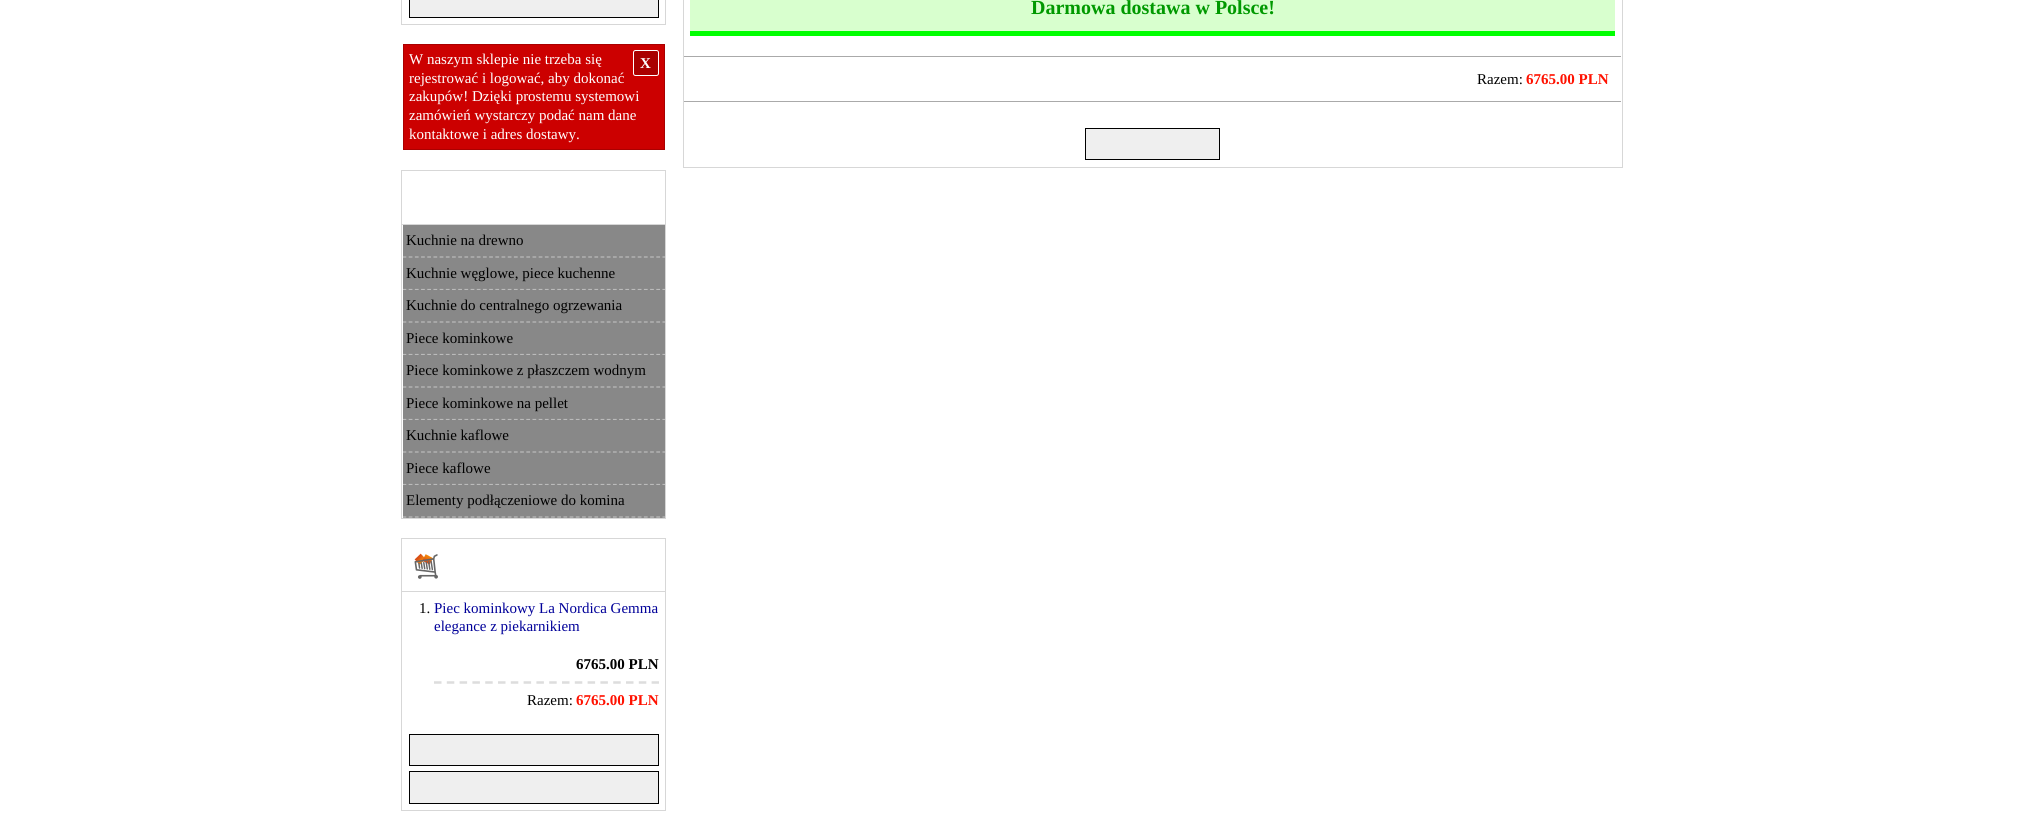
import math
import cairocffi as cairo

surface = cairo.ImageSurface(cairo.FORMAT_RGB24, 2027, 816)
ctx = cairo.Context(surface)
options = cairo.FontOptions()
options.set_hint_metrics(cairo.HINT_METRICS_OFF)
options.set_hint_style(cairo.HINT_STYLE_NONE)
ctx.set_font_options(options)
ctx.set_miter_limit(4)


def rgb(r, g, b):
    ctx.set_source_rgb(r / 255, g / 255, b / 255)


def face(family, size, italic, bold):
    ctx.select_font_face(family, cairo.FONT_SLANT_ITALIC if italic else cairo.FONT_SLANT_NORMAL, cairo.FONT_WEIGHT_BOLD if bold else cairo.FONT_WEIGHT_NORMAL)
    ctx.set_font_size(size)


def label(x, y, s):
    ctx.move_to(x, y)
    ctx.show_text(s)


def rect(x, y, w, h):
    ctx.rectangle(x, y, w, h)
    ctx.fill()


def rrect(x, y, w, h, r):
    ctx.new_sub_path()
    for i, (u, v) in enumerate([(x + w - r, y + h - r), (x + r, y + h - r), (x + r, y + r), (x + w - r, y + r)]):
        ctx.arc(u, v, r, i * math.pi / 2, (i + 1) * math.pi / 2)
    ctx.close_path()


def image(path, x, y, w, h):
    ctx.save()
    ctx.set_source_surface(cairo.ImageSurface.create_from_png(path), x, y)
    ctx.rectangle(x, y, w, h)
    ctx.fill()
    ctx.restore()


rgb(255, 255, 255)
ctx.paint()
ctx.rectangle(683.5, -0.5, 939, 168)
rgb(215, 215, 215)
ctx.set_line_width(1)
ctx.stroke()
rgb(216, 255, 206)
rect(690, 0, 925, 31)
rgb(0, 255, 0)
rect(690, 31, 925, 5)
face('Liberation Serif', 20, 0, 1)
rgb(0, 153, 0)
label(1031, 14, 'Darmowa dostawa w Polsce!')
rgb(170, 170, 170)
rect(684, 56, 937, 1)
rect(684, 101, 937, 1)
face('Liberation Serif', 15, 0, 0)
rgb(0, 0, 0)
label(1477, 84, 'Razem:')
face('Liberation Serif', 15, 0, 1)
rgb(255, 17, 0)
label(1526, 84, '6765.00 PLN')
rgb(239, 239, 239)
ctx.rectangle(1085.5, 128.5, 134, 31)
ctx.fill_preserve()
rgb(0, 0, 0)
ctx.stroke()
ctx.rectangle(401.5, -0.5, 264, 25)
rgb(215, 215, 215)
ctx.stroke()
rgb(239, 239, 239)
ctx.rectangle(409.5, -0.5, 249, 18)
ctx.fill_preserve()
rgb(0, 0, 0)
ctx.stroke()
rgb(204, 0, 0)
ctx.rectangle(403.5, 44.5, 261, 105)
ctx.fill_preserve()
rgb(170, 0, 0)
ctx.stroke()
face('Liberation Serif', 15, 0, 0)
rgb(255, 255, 255)
label(409, 64, 'W naszym sklepie nie trzeba się')
rgb(170, 0, 0)
rrect(633.5, 50.5, 25, 25, 2)
ctx.fill_preserve()
rgb(255, 255, 255)
ctx.stroke()
face('Liberation Serif', 15, 0, 1)
label(640, 68, 'X')
face('Liberation Serif', 15, 0, 0)
label(409, 83, 'rejestrować i logować, aby dokonać')
label(409, 101, 'zakupów! Dzięki prostemu systemowi')
label(409, 120, 'zamówień wystarczy podać nam dane')
label(409, 139, 'kontaktowe i adres dostawy.')
rgb(215, 215, 215)
rect(401, 170, 265, 1)
rect(665, 170, 1, 54)
rect(401, 170, 1, 54)
ctx.rectangle(401.5, 224.5, 264, 294)
ctx.stroke()
rgb(136, 136, 136)
rect(403, 225, 262, 65)
ctx.save()
ctx.rectangle(403, 225, 262, 293)
ctx.clip()
ctx.new_path()
ctx.move_to(402.5, 257)
ctx.line_to(672.5, 257)
rgb(187, 187, 187)
ctx.set_line_width(1.2)
ctx.set_dash([3.75, 2.44])
ctx.stroke()
ctx.restore()
rgb(0, 0, 0)
label(406, 245, 'Kuchnie na drewno')
ctx.save()
ctx.rectangle(403, 225, 262, 293)
ctx.clip()
ctx.new_path()
ctx.move_to(402.5, 289.5)
ctx.line_to(672.5, 289.5)
rgb(187, 187, 187)
ctx.set_line_width(1.2)
ctx.set_dash([3.75, 2.44])
ctx.stroke()
ctx.restore()
label(406, 278, 'Kuchnie węglowe, piece kuchenne')
rgb(136, 136, 136)
rect(403, 290, 262, 65)
ctx.save()
ctx.rectangle(403, 225, 262, 293)
ctx.clip()
ctx.new_path()
ctx.move_to(402.5, 322)
ctx.line_to(672.5, 322)
rgb(187, 187, 187)
ctx.set_line_width(1.2)
ctx.set_dash([3.75, 2.44])
ctx.stroke()
ctx.restore()
rgb(0, 0, 0)
label(406, 310, 'Kuchnie do centralnego ogrzewania')
ctx.save()
ctx.rectangle(403, 225, 262, 293)
ctx.clip()
ctx.new_path()
ctx.move_to(402.5, 354.5)
ctx.line_to(672.5, 354.5)
rgb(187, 187, 187)
ctx.set_line_width(1.2)
ctx.set_dash([3.75, 2.44])
ctx.stroke()
ctx.restore()
label(406, 343, 'Piece kominkowe')
rgb(136, 136, 136)
rect(403, 355, 262, 65)
ctx.save()
ctx.rectangle(403, 225, 262, 293)
ctx.clip()
ctx.new_path()
ctx.move_to(402.5, 387)
ctx.line_to(672.5, 387)
rgb(187, 187, 187)
ctx.set_line_width(1.2)
ctx.set_dash([3.75, 2.44])
ctx.stroke()
ctx.restore()
rgb(0, 0, 0)
label(406, 375, 'Piece kominkowe z płaszczem wodnym')
ctx.save()
ctx.rectangle(403, 225, 262, 293)
ctx.clip()
ctx.new_path()
ctx.move_to(402.5, 419.5)
ctx.line_to(672.5, 419.5)
rgb(187, 187, 187)
ctx.set_line_width(1.2)
ctx.set_dash([3.75, 2.44])
ctx.stroke()
ctx.restore()
label(406, 408, 'Piece kominkowe na pellet')
rgb(136, 136, 136)
rect(403, 420, 262, 65)
ctx.save()
ctx.rectangle(403, 225, 262, 293)
ctx.clip()
ctx.new_path()
ctx.move_to(402.5, 452)
ctx.line_to(672.5, 452)
rgb(187, 187, 187)
ctx.set_line_width(1.2)
ctx.set_dash([3.75, 2.44])
ctx.stroke()
ctx.restore()
rgb(0, 0, 0)
label(406, 440, 'Kuchnie kaflowe')
ctx.save()
ctx.rectangle(403, 225, 262, 293)
ctx.clip()
ctx.new_path()
ctx.move_to(402.5, 484.5)
ctx.line_to(672.5, 484.5)
rgb(187, 187, 187)
ctx.set_line_width(1.2)
ctx.set_dash([3.75, 2.44])
ctx.stroke()
ctx.restore()
label(406, 473, 'Piece kaflowe')
rgb(136, 136, 136)
rect(403, 485, 262, 33)
ctx.save()
ctx.rectangle(403, 225, 262, 293)
ctx.clip()
ctx.new_path()
ctx.move_to(402.5, 517)
ctx.line_to(672.5, 517)
rgb(187, 187, 187)
ctx.set_line_width(1.2)
ctx.set_dash([3.75, 2.44])
ctx.stroke()
ctx.restore()
rgb(0, 0, 0)
label(406, 505, 'Elementy podłączeniowe do komina')
rgb(215, 215, 215)
rect(401, 538, 265, 1)
rect(665, 538, 1, 53)
rect(401, 538, 1, 53)
image('image0.png', 414, 553, 24, 26)
ctx.rectangle(401.5, 591.5, 264, 219)
ctx.stroke()
ctx.new_path()
ctx.move_to(434, 682.5)
ctx.line_to(659, 682.5)
rgb(221, 221, 221)
ctx.set_line_width(2.5)
ctx.set_dash([7.5, 5.3])
ctx.stroke()
rgb(0, 0, 0)
label(419, 613, '1.')
rgb(0, 0, 153)
label(434, 613, 'Piec kominkowy La Nordica Gemma')
label(434, 631, 'elegance z piekarnikiem')
face('Liberation Serif', 15, 0, 1)
rgb(0, 0, 0)
label(576, 669, '6765.00 PLN')
face('Liberation Serif', 15, 0, 0)
label(527, 705, 'Razem:')
face('Liberation Serif', 15, 0, 1)
rgb(255, 17, 0)
label(576, 705, '6765.00 PLN')
rgb(239, 239, 239)
ctx.rectangle(409.5, 734.5, 249, 31)
ctx.fill_preserve()
rgb(0, 0, 0)
ctx.set_line_width(1)
ctx.set_dash([])
ctx.stroke()
rgb(239, 239, 239)
ctx.rectangle(409.5, 771.5, 249, 32)
ctx.fill_preserve()
rgb(0, 0, 0)
ctx.stroke()
surface.write_to_png('render.png')
